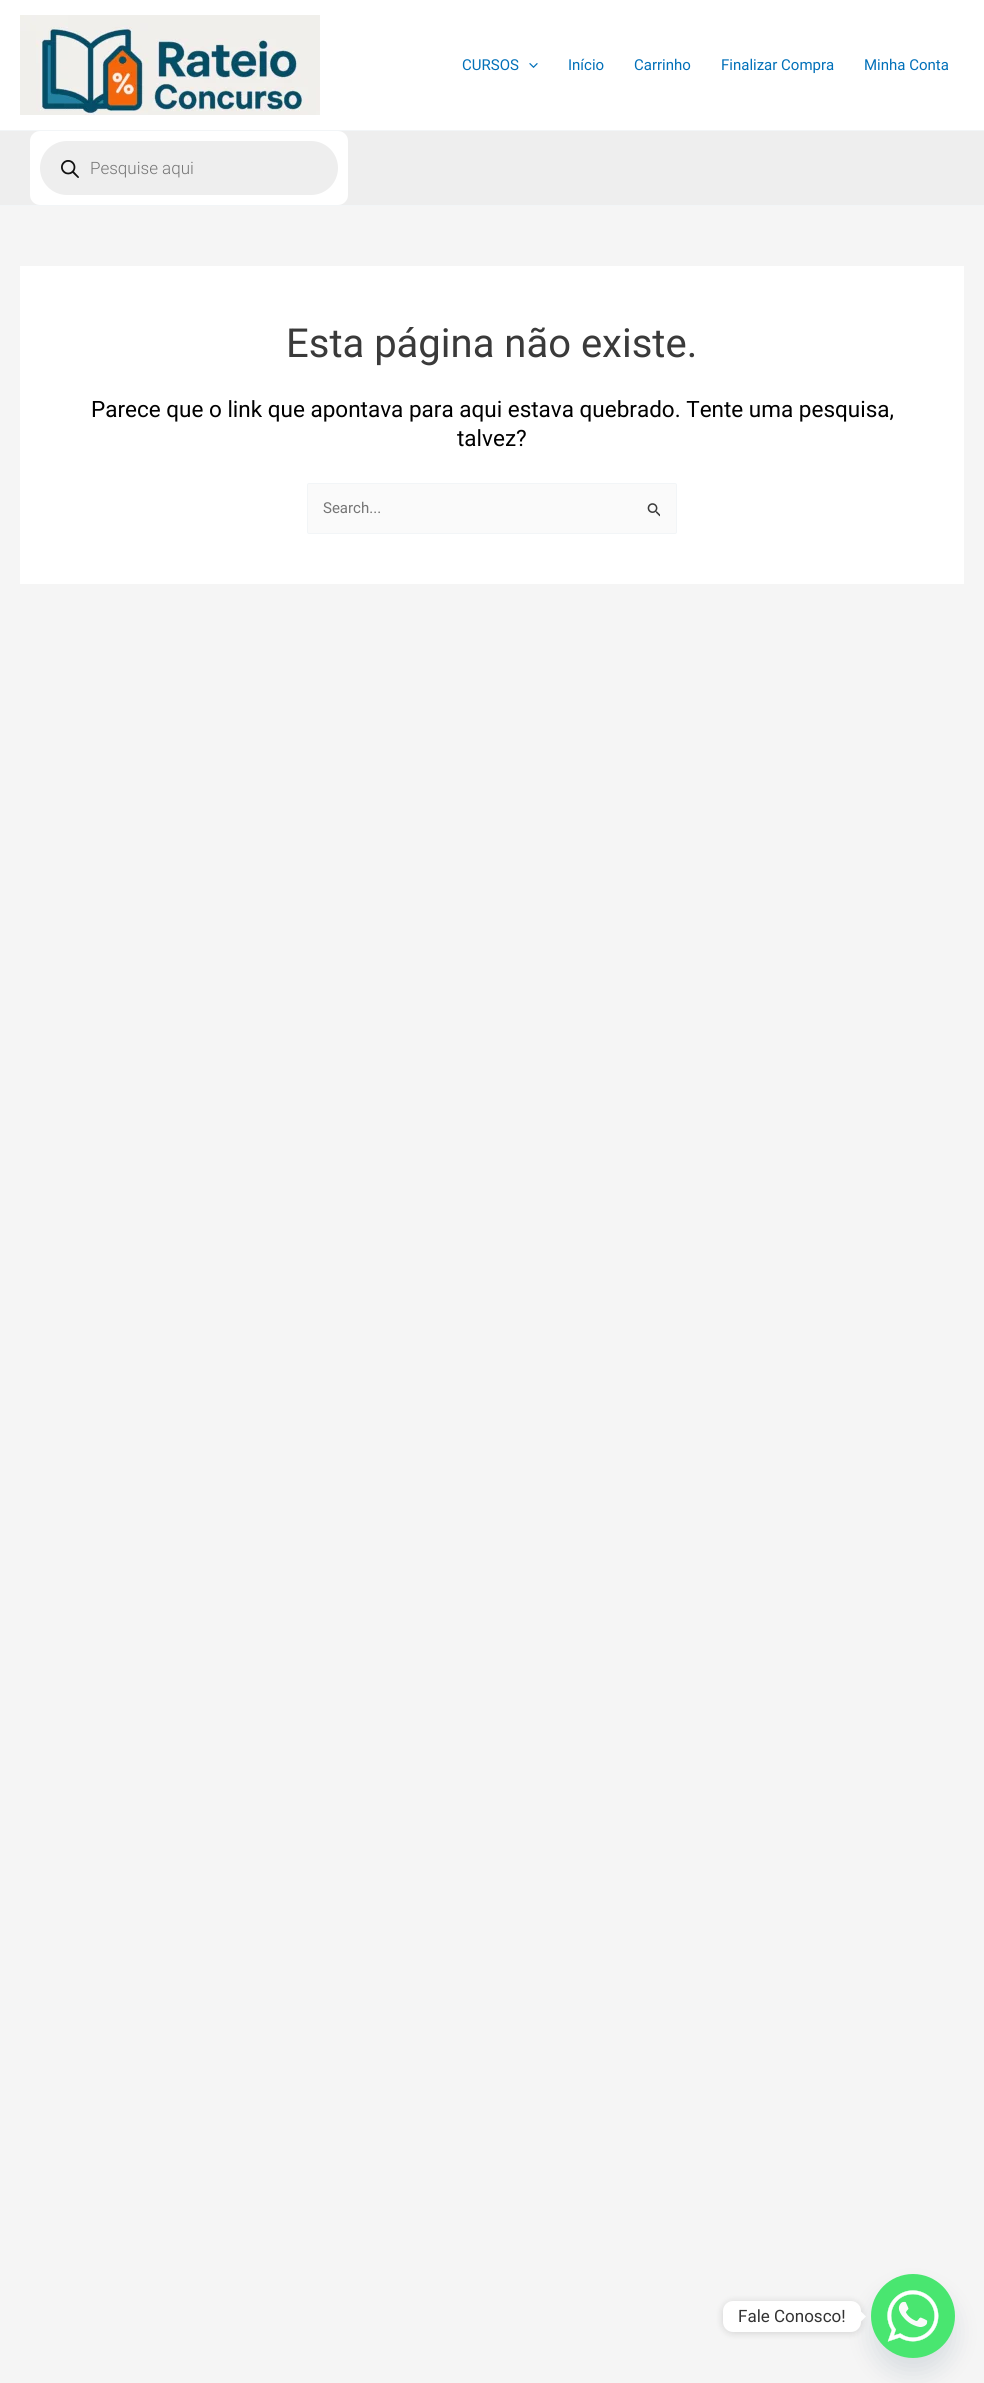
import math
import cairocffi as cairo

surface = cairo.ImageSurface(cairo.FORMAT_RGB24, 984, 2383)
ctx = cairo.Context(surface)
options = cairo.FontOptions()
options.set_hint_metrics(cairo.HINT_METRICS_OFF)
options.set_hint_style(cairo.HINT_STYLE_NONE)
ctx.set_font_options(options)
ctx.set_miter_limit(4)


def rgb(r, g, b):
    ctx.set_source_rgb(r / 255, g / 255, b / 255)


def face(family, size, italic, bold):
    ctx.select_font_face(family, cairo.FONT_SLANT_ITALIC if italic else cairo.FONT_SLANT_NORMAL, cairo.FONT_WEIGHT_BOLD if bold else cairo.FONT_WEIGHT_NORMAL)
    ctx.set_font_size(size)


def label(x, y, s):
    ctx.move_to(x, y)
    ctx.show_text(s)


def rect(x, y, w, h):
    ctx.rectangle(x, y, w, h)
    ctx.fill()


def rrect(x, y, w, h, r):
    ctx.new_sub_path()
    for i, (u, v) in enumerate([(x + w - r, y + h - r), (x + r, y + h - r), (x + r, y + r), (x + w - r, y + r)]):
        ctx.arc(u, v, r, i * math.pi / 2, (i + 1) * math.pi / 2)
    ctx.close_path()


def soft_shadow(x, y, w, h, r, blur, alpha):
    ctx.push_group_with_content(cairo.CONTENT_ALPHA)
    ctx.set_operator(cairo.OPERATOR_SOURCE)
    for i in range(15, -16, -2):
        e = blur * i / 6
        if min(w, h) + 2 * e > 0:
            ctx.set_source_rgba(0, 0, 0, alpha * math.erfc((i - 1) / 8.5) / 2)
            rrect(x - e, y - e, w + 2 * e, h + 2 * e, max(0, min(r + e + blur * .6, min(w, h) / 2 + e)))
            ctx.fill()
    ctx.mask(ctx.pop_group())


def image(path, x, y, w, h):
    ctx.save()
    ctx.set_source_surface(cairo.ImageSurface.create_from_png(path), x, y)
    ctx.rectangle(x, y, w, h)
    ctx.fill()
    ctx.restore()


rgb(245, 245, 245)
ctx.paint()
rgb(255, 255, 255)
rect(0, 0, 984, 130)
rgb(242, 245, 247)
rect(0, 130, 984, 1)
image('image0.png', 20, 15, 300, 100)
face('Roboto', 15, 0, 0)
rgb(1, 112, 185)
label(462, 70, 'CURSOS')
image('image1.png', 529, 63, 9, 5)
label(568, 70, 'Início')
label(634, 70, 'Carrinho')
label(721, 70, 'Finalizar Compra')
label(864, 70, 'Minha Conta')
rgb(238, 238, 238)
rect(0, 131, 984, 74)
rgb(242, 245, 247)
rect(0, 205, 984, 1)
rgb(255, 255, 255)
rrect(30, 131, 318, 74, 10)
ctx.fill()
rgb(238, 238, 238)
rrect(40, 141, 298, 54, 27)
ctx.fill()
image('image2.png', 61, 160, 18, 18)
face('Roboto Light', 17, 0, 0)
rgb(117, 117, 117)
label(90, 174, 'Pesquise aqui')
rgb(255, 255, 255)
rect(20, 266, 944, 318)
face('Roboto', 40, 0, 0)
rgb(58, 58, 58)
label(286, 357, 'Esta página não existe.')
face('Roboto', 22.5, 0, 0)
rgb(0, 0, 0)
label(91, 417, 'Parece que o link que apontava para aqui estava quebrado. Tente uma pesquisa,')
label(457, 446, 'talvez?')
rgb(250, 250, 250)
rrect(307.5, 483.5, 369, 50, 1.5)
ctx.fill_preserve()
rgb(242, 245, 247)
ctx.set_line_width(1)
ctx.stroke()
face('Roboto', 15, 0, 0)
rgb(117, 117, 117)
label(323, 513, 'Search...')
image('image3.png', 647, 503, 13, 14)
rgb(73, 104, 126)
soft_shadow(871, 2290, 84, 84, 42, 12, 0.16)
image('image4.png', 871, 2274, 84, 84)
rgb(0, 0, 0)
soft_shadow(723, 2302, 138, 31, 10, 4, 0.15)
rgb(255, 255, 255)
rrect(723, 2301, 138, 31, 10)
ctx.fill()
face('Roboto', 17, 0, 0)
rgb(51, 51, 51)
label(738, 2322, 'Fale Conosco!')
rgb(255, 255, 255)
ctx.new_path()
ctx.move_to(861, 2321.5)
ctx.line_to(861, 2311.5)
ctx.line_to(866, 2316.5)
ctx.close_path()
ctx.fill()
surface.write_to_png('render.png')
